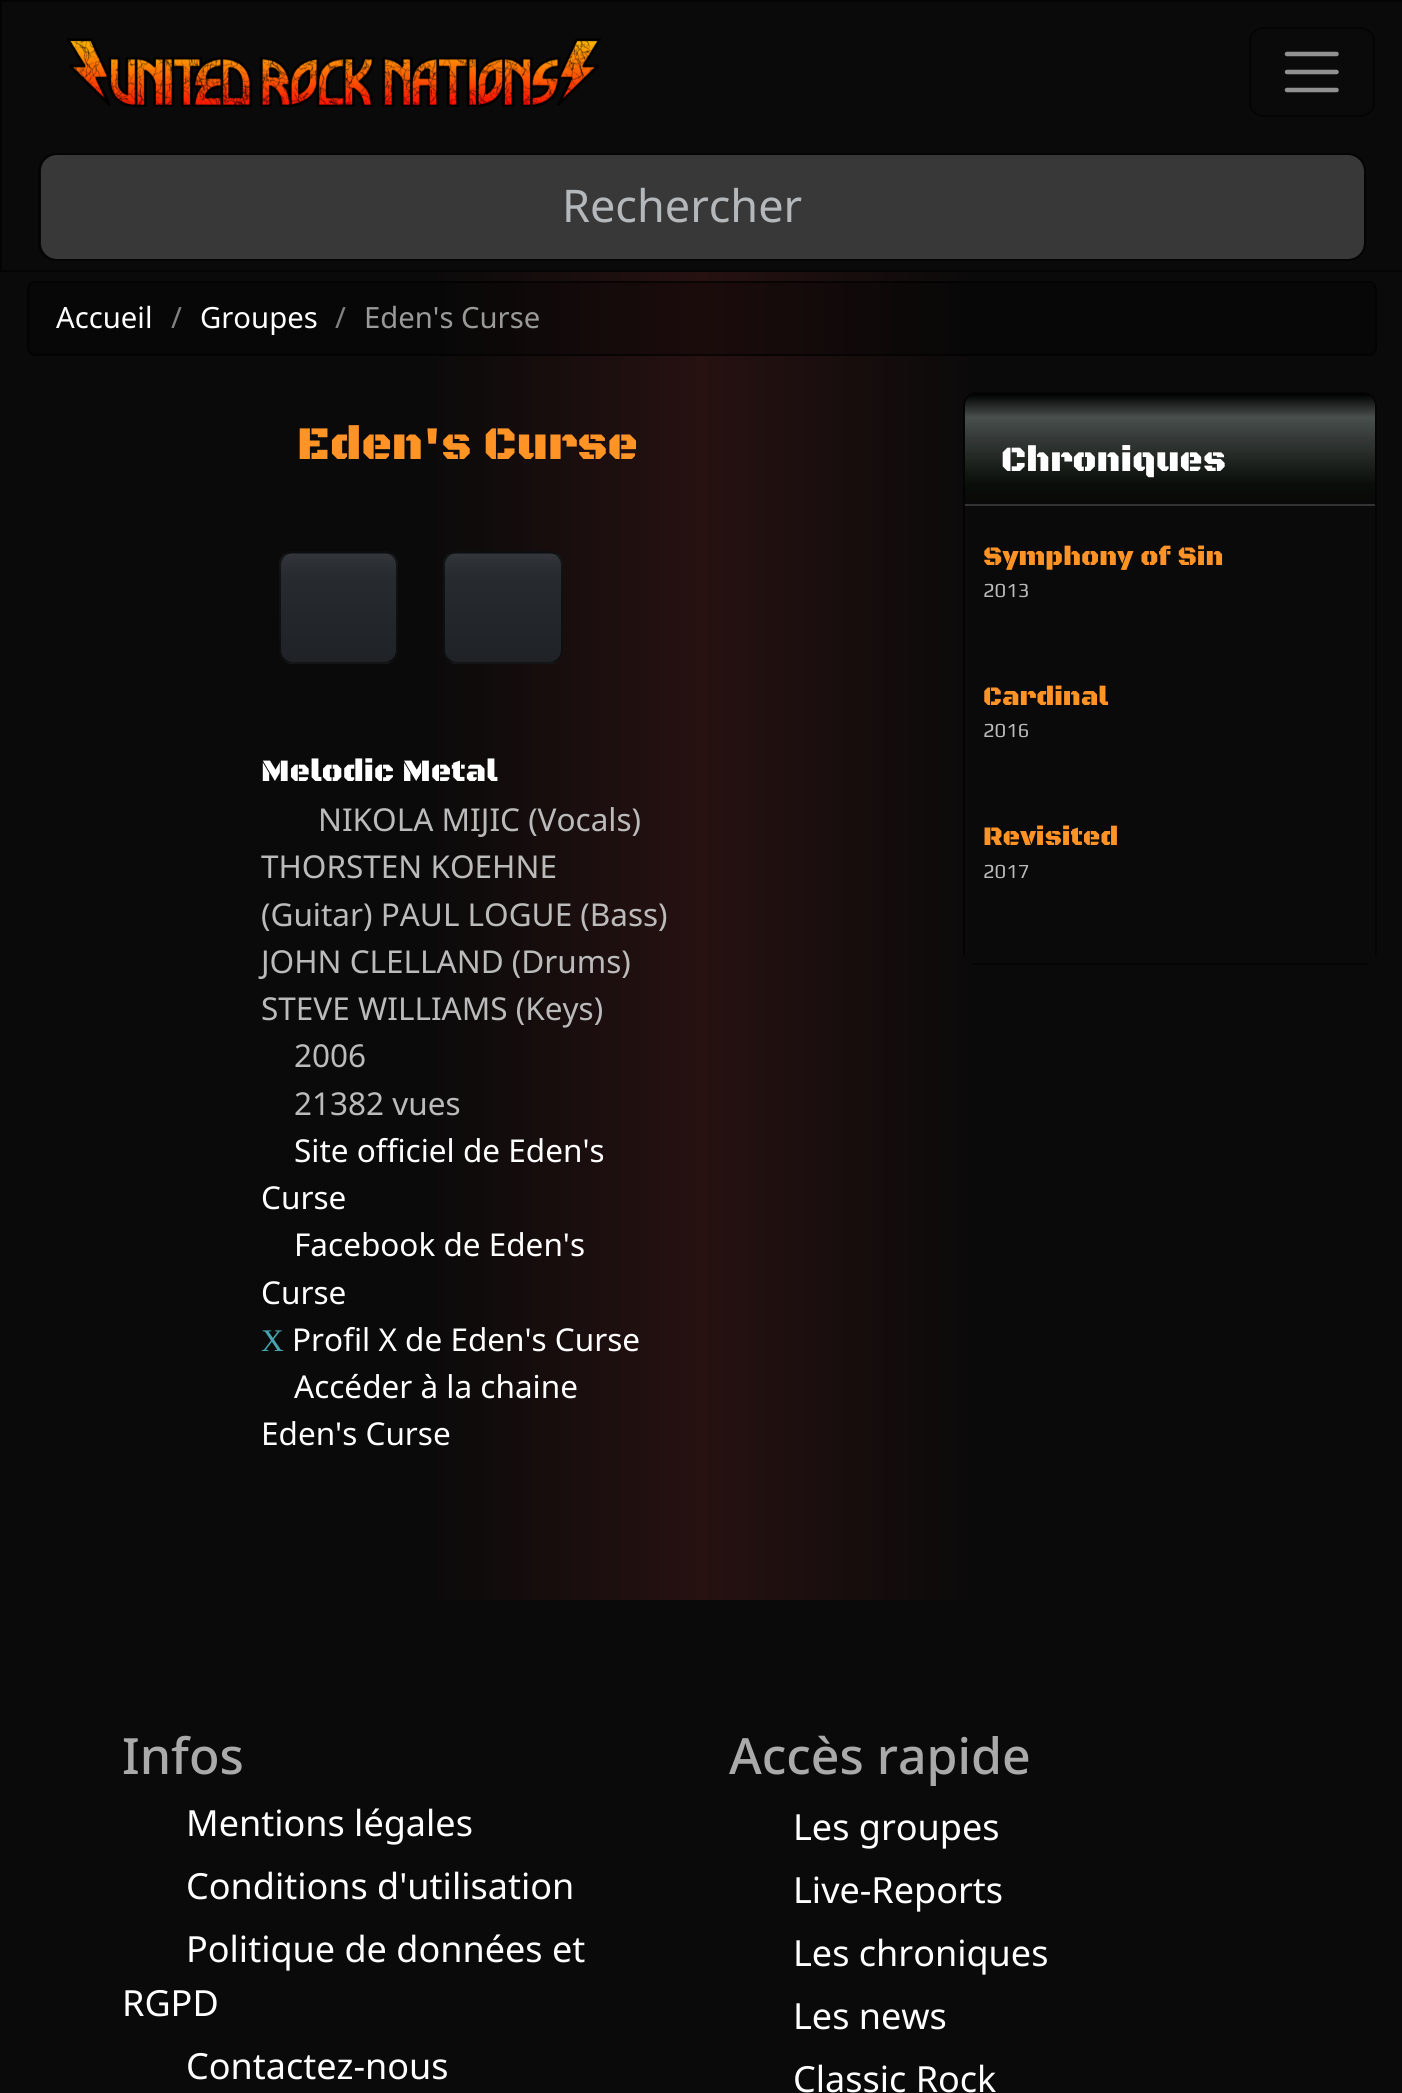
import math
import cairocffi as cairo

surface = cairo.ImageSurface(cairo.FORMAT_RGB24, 1402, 2093)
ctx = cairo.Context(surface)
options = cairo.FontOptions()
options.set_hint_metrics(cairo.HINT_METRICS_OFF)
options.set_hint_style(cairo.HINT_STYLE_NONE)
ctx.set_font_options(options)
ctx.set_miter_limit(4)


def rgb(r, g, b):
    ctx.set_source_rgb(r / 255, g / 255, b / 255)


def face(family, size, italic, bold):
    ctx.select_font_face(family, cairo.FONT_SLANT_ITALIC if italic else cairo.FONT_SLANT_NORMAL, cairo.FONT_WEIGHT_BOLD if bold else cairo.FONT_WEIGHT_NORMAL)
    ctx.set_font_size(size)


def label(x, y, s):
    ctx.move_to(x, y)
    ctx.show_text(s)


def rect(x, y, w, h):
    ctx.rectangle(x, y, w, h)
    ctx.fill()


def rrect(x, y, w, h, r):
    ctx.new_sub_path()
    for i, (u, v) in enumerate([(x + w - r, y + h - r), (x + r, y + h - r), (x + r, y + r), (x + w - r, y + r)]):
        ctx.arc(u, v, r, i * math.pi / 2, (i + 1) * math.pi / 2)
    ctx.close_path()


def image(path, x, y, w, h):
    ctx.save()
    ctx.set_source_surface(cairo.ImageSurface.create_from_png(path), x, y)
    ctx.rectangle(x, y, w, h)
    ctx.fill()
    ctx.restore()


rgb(255, 255, 255)
ctx.paint()
gradient = cairo.LinearGradient(0, 1430, 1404, 1430)
gradient.add_color_stop_rgba(0, 0.039, 0.039, 0.039, 1)
gradient.add_color_stop_rgba(0.3, 0.039, 0.039, 0.039, 1)
gradient.add_color_stop_rgba(0.5, 0.153, 0.067, 0.067, 1)
gradient.add_color_stop_rgba(0.7, 0.039, 0.039, 0.039, 1)
gradient.add_color_stop_rgba(1, 0.039, 0.039, 0.039, 1)
ctx.set_source(gradient)
rect(0, 272, 1402, 1328)
rgb(10, 10, 10)
ctx.rectangle(1, 1, 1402, 270)
ctx.fill_preserve()
rgb(4, 4, 4)
ctx.stroke()
image('image0.png', 67, 38, 534, 69)
rrect(1250, 28, 124, 88, 13)
ctx.stroke()
ctx.new_path()
ctx.move_to(1287, 54)
ctx.line_to(1336.5, 54)
ctx.move_to(1287, 72)
ctx.line_to(1336.5, 72)
ctx.move_to(1287, 90)
ctx.line_to(1336.5, 90)
rgb(145, 145, 145)
ctx.set_line_width(4.5)
ctx.set_line_cap(cairo.LINE_CAP_ROUND)
ctx.stroke()
rgb(56, 56, 56)
rrect(41, 155, 1323, 104, 16)
ctx.fill()
rrect(39, 154, 1326, 106, 17)
ctx.set_source_rgba(0, 0, 0, 0.6)
ctx.set_line_width(2)
ctx.set_line_cap(cairo.LINE_CAP_BUTT)
ctx.stroke()
face('Noto Sans', 45, 0, 0)
rgb(181, 184, 187)
label(562, 222, 'Rechercher')
ctx.set_source_rgba(0, 0, 0, 0.3)
rrect(27, 281, 1350, 75, 9)
ctx.fill()
rrect(28, 282, 1348, 73, 8)
ctx.set_source_rgba(0, 0, 0, 0.6)
ctx.stroke()
face('Noto Sans', 29.25, 0, 0)
rgb(255, 255, 255)
label(56, 328, 'Accueil')
rgb(129, 129, 129)
label(171, 328, '/')
rgb(255, 255, 255)
label(200, 328, 'Groupes')
rgb(129, 129, 129)
label(335, 328, '/')
rgb(153, 153, 153)
label(364, 328, 'Eden\'s Curse')
face('Black Ops One Black', 47.25, 0, 0)
rgb(255, 147, 38)
label(297, 459, 'Eden\'s Curse')
ctx.save()
rrect(279, 551, 119, 113, 14)
ctx.clip()
gradient = cairo.LinearGradient(339, 446, 339, 554)
gradient.add_color_stop_rgba(0, 0.196, 0.212, 0.227, 1)
gradient.add_color_stop_rgba(0.2, 0.153, 0.169, 0.188, 1)
gradient.add_color_stop_rgba(1, 0.122, 0.133, 0.149, 1)
ctx.set_source(gradient)
rect(279, 551, 119, 3)
gradient = cairo.LinearGradient(339, 554, 339, 662)
gradient.add_color_stop_rgba(0, 0.196, 0.212, 0.227, 1)
gradient.add_color_stop_rgba(0.2, 0.153, 0.169, 0.188, 1)
gradient.add_color_stop_rgba(1, 0.122, 0.133, 0.149, 1)
ctx.set_source(gradient)
rect(279, 554, 119, 108)
gradient = cairo.LinearGradient(339, 662, 339, 770)
gradient.add_color_stop_rgba(0, 0.196, 0.212, 0.227, 1)
gradient.add_color_stop_rgba(0.2, 0.153, 0.169, 0.188, 1)
gradient.add_color_stop_rgba(1, 0.122, 0.133, 0.149, 1)
ctx.set_source(gradient)
rect(279, 662, 119, 2)
ctx.restore()
rrect(280, 552, 117, 111, 13)
ctx.set_source_rgba(0, 0, 0, 0.6)
ctx.stroke()
ctx.save()
rrect(443, 551, 120, 113, 14)
ctx.clip()
gradient = cairo.LinearGradient(503, 446, 503, 554)
gradient.add_color_stop_rgba(0, 0.196, 0.212, 0.227, 1)
gradient.add_color_stop_rgba(0.2, 0.153, 0.169, 0.188, 1)
gradient.add_color_stop_rgba(1, 0.122, 0.133, 0.149, 1)
ctx.set_source(gradient)
rect(443, 551, 120, 3)
gradient = cairo.LinearGradient(503, 554, 503, 662)
gradient.add_color_stop_rgba(0, 0.196, 0.212, 0.227, 1)
gradient.add_color_stop_rgba(0.2, 0.153, 0.169, 0.188, 1)
gradient.add_color_stop_rgba(1, 0.122, 0.133, 0.149, 1)
ctx.set_source(gradient)
rect(443, 554, 120, 108)
gradient = cairo.LinearGradient(503, 662, 503, 770)
gradient.add_color_stop_rgba(0, 0.196, 0.212, 0.227, 1)
gradient.add_color_stop_rgba(0.2, 0.153, 0.169, 0.188, 1)
gradient.add_color_stop_rgba(1, 0.122, 0.133, 0.149, 1)
ctx.set_source(gradient)
rect(443, 662, 120, 2)
ctx.restore()
rrect(444, 552, 118, 111, 13)
ctx.stroke()
face('Black Ops One Black', 31.5, 0, 0)
rgb(255, 255, 255)
label(261, 781, 'Melodic Metal')
face('Noto Sans', 31.5, 0, 0)
rgb(187, 187, 187)
label(318, 831, 'NIKOLA MIJIC (Vocals)')
label(261, 878, 'THORSTEN KOEHNE')
label(261, 926, '(Guitar) PAUL LOGUE (Bass)')
label(261, 973, 'JOHN CLELLAND (Drums)')
label(261, 1020, 'STEVE WILLIAMS (Keys)')
label(294, 1067, '2006')
label(294, 1115, '21382 vues')
rgb(255, 255, 255)
label(294, 1162, 'Site officiel de Eden\'s')
label(261, 1209, 'Curse')
label(294, 1256, 'Facebook de Eden\'s')
label(261, 1304, 'Curse')
face('Liberation Serif', 31.5, 0, 0)
rgb(71, 165, 178)
label(261, 1351, 'X')
face('Noto Sans', 31.5, 0, 0)
rgb(255, 255, 255)
label(292, 1351, 'Profil X de Eden\'s Curse')
label(294, 1398, 'Accéder à la chaine')
label(261, 1445, 'Eden\'s Curse')
rrect(964, 393, 412, 571, 13)
rgb(4, 4, 4)
ctx.stroke()
gradient = cairo.LinearGradient(1170, 394, 1170, 504)
gradient.add_color_stop_rgba(0, 0, 0, 0, 1)
gradient.add_color_stop_rgba(0.21, 0.286, 0.31, 0.302, 1)
gradient.add_color_stop_rgba(0.82, 0.039, 0.055, 0.039, 1)
gradient.add_color_stop_rgba(1, 0.039, 0.031, 0.035, 1)
ctx.set_source(gradient)
ctx.new_path()
ctx.move_to(976, 394)
ctx.line_to(1364, 394)
ctx.curve_to(1370, 394, 1375, 399, 1375, 405)
ctx.line_to(1375, 504)
ctx.line_to(965, 504)
ctx.line_to(965, 405)
ctx.curve_to(965, 399, 970, 394, 976, 394)
ctx.close_path()
ctx.fill()
rgb(51, 51, 51)
rect(965, 504, 410, 2)
face('Black Ops One Black', 36, 0, 0)
rgb(255, 255, 255)
label(1001, 471, 'Chroniques')
rgb(10, 10, 10)
rect(965, 954, 410, 9)
face('Black Ops One Black', 27, 0, 0)
rgb(255, 147, 38)
label(983, 565, 'Symphony of Sin')
face('Play', 20, 0, 0)
rgb(187, 187, 187)
label(983, 597, '2013')
face('Black Ops One Black', 27, 0, 0)
rgb(255, 147, 38)
label(983, 705, 'Cardinal')
face('Play', 20, 0, 0)
rgb(187, 187, 187)
label(983, 737, '2016')
face('Black Ops One Black', 27, 0, 0)
rgb(255, 147, 38)
label(983, 845, 'Revisited')
face('Play', 20, 0, 0)
rgb(187, 187, 187)
label(983, 878, '2017')
rgb(10, 10, 10)
rect(0, 1600, 1402, 493)
face('Noto Sans Medium', 50, 0, 0)
rgb(170, 170, 170)
label(122, 1774, 'Infos')
face('Noto Sans', 36, 0, 0)
rgb(255, 255, 255)
label(186, 1836, 'Mentions légales')
label(186, 1899, 'Conditions d\'utilisation')
label(186, 1962, 'Politique de données et')
label(122, 2016, 'RGPD')
label(186, 2079, 'Contactez-nous')
face('Noto Sans Medium', 50, 0, 0)
rgb(170, 170, 170)
label(729, 1774, 'Accès rapide')
face('Noto Sans', 36, 0, 0)
rgb(255, 255, 255)
label(793, 1840, 'Les groupes')
label(793, 1903, 'Live-Reports')
label(793, 1966, 'Les chroniques')
label(793, 2029, 'Les news')
label(793, 2092, 'Classic Rock')
surface.write_to_png('render.png')
